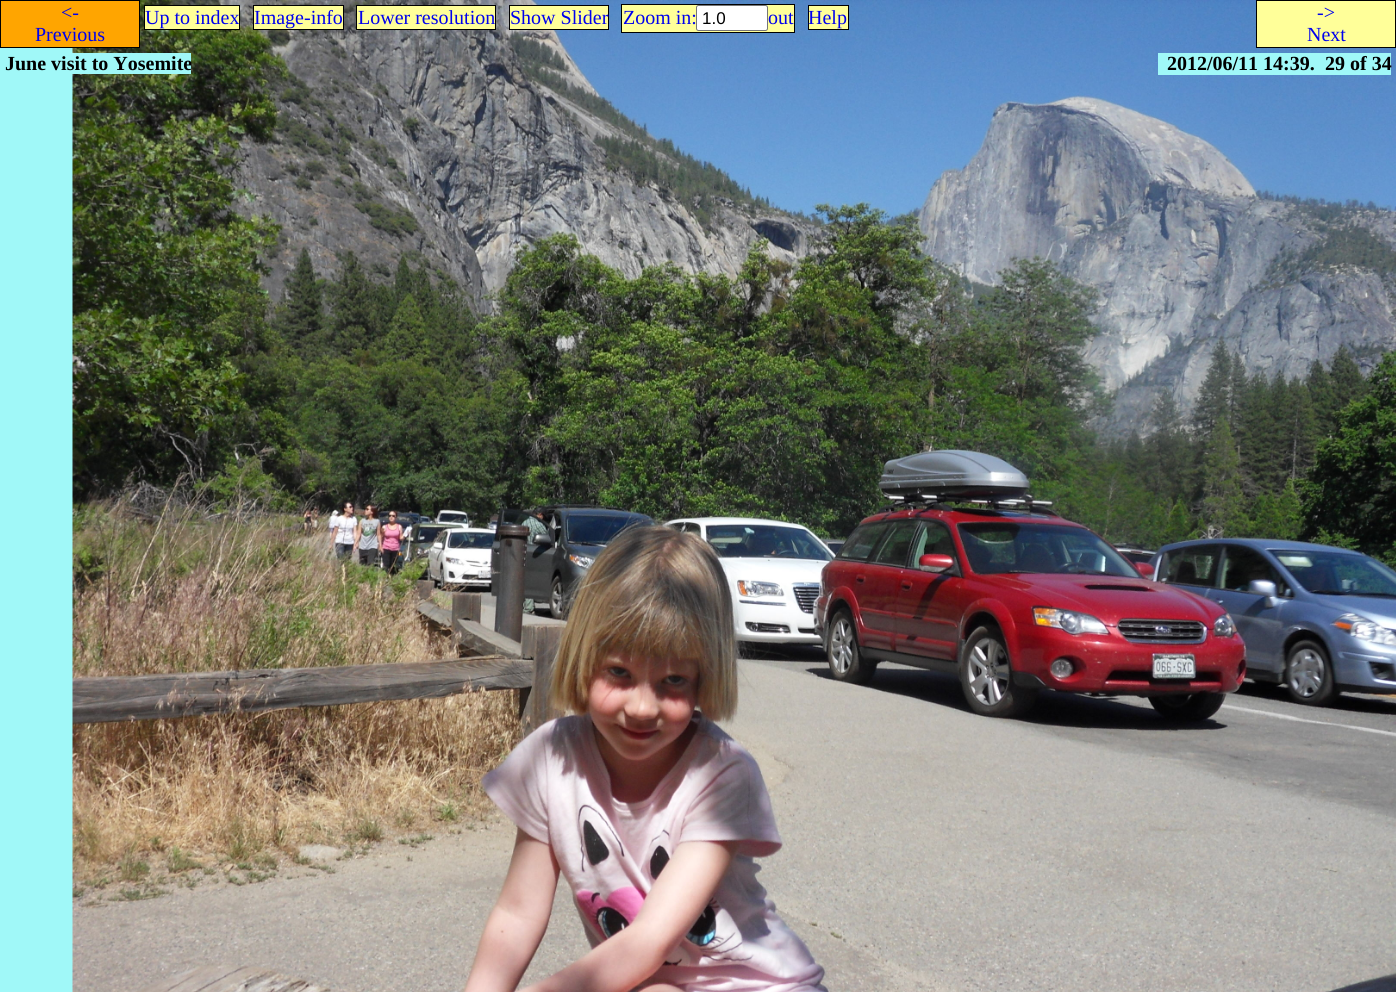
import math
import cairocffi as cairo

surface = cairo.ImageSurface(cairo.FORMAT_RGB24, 1396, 992)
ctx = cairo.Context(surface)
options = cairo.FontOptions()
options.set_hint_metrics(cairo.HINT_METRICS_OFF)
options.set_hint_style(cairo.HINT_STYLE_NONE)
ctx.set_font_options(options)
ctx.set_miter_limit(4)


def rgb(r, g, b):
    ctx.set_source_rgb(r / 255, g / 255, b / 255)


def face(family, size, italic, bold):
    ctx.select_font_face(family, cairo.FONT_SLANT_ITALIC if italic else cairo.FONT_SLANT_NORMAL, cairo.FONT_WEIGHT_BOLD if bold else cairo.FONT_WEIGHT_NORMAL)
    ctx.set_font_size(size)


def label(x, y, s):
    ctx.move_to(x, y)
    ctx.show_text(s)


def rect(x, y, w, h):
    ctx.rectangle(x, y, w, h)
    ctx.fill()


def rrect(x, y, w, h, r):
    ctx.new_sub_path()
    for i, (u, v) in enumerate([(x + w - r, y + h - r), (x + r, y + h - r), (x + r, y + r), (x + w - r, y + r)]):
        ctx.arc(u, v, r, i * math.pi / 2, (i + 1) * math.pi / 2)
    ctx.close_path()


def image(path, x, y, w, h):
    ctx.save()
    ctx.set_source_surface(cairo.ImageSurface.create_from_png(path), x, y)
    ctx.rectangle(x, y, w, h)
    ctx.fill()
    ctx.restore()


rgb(160, 248, 248)
ctx.paint()
image('image0.png', 72, 0, 1324, 992)
rgb(255, 165, 0)
ctx.rectangle(0.5, 0.5, 139, 47)
ctx.fill_preserve()
rgb(0, 0, 0)
ctx.set_line_width(1)
ctx.stroke()
face('Liberation Serif', 20, 0, 0)
rgb(0, 0, 238)
label(61, 19, '<-')
label(35, 41, 'Previous')
rgb(255, 255, 153)
ctx.rectangle(144.5, 5.5, 95, 24)
ctx.fill_preserve()
rgb(0, 0, 0)
ctx.stroke()
rgb(0, 0, 238)
label(145, 24, 'Up to index')
rgb(255, 255, 153)
ctx.rectangle(253.5, 5.5, 90, 24)
ctx.fill_preserve()
rgb(0, 0, 0)
ctx.stroke()
rgb(0, 0, 238)
label(254, 24, 'Image-info')
rgb(255, 255, 153)
ctx.rectangle(356.5, 5.5, 139, 24)
ctx.fill_preserve()
rgb(0, 0, 0)
ctx.stroke()
rgb(0, 0, 238)
label(358, 24, 'Lower resolution')
rgb(255, 255, 153)
ctx.rectangle(509.5, 5.5, 99, 24)
ctx.fill_preserve()
rgb(0, 0, 0)
ctx.stroke()
rgb(0, 0, 238)
label(510, 24, 'Show Slider')
rgb(255, 255, 153)
ctx.rectangle(621.5, 4.5, 173, 28)
ctx.fill_preserve()
rgb(0, 0, 0)
ctx.stroke()
rgb(0, 0, 238)
label(623, 24, 'Zoom in:')
rgb(255, 255, 255)
rrect(696.5, 5.5, 71, 25, 2)
ctx.fill_preserve()
rgb(118, 118, 118)
ctx.stroke()
face('Liberation Sans', 17, 0, 0)
rgb(0, 0, 0)
label(702, 24, '1.0')
face('Liberation Serif', 20, 0, 0)
rgb(0, 0, 238)
label(768, 24, 'out')
rgb(255, 255, 153)
ctx.rectangle(808.5, 5.5, 40, 24)
ctx.fill_preserve()
rgb(0, 0, 0)
ctx.stroke()
rgb(0, 0, 238)
label(808, 24, 'Help')
rgb(255, 255, 153)
ctx.rectangle(1256.5, 0.5, 139, 47)
ctx.fill_preserve()
rgb(0, 0, 0)
ctx.stroke()
rgb(0, 0, 238)
label(1317, 19, '->')
label(1307, 41, 'Next')
rgb(160, 248, 248)
rect(72, 53, 119, 21)
face('Liberation Serif', 20, 0, 1)
rgb(0, 0, 0)
label(5, 70, 'June visit to Yosemite')
rgb(160, 248, 248)
rect(1158, 53, 233, 22)
rgb(0, 0, 0)
label(1167, 70, '2012/06/11 14:39.')
label(1325, 70, '29 of 34')
surface.write_to_png('render.png')
